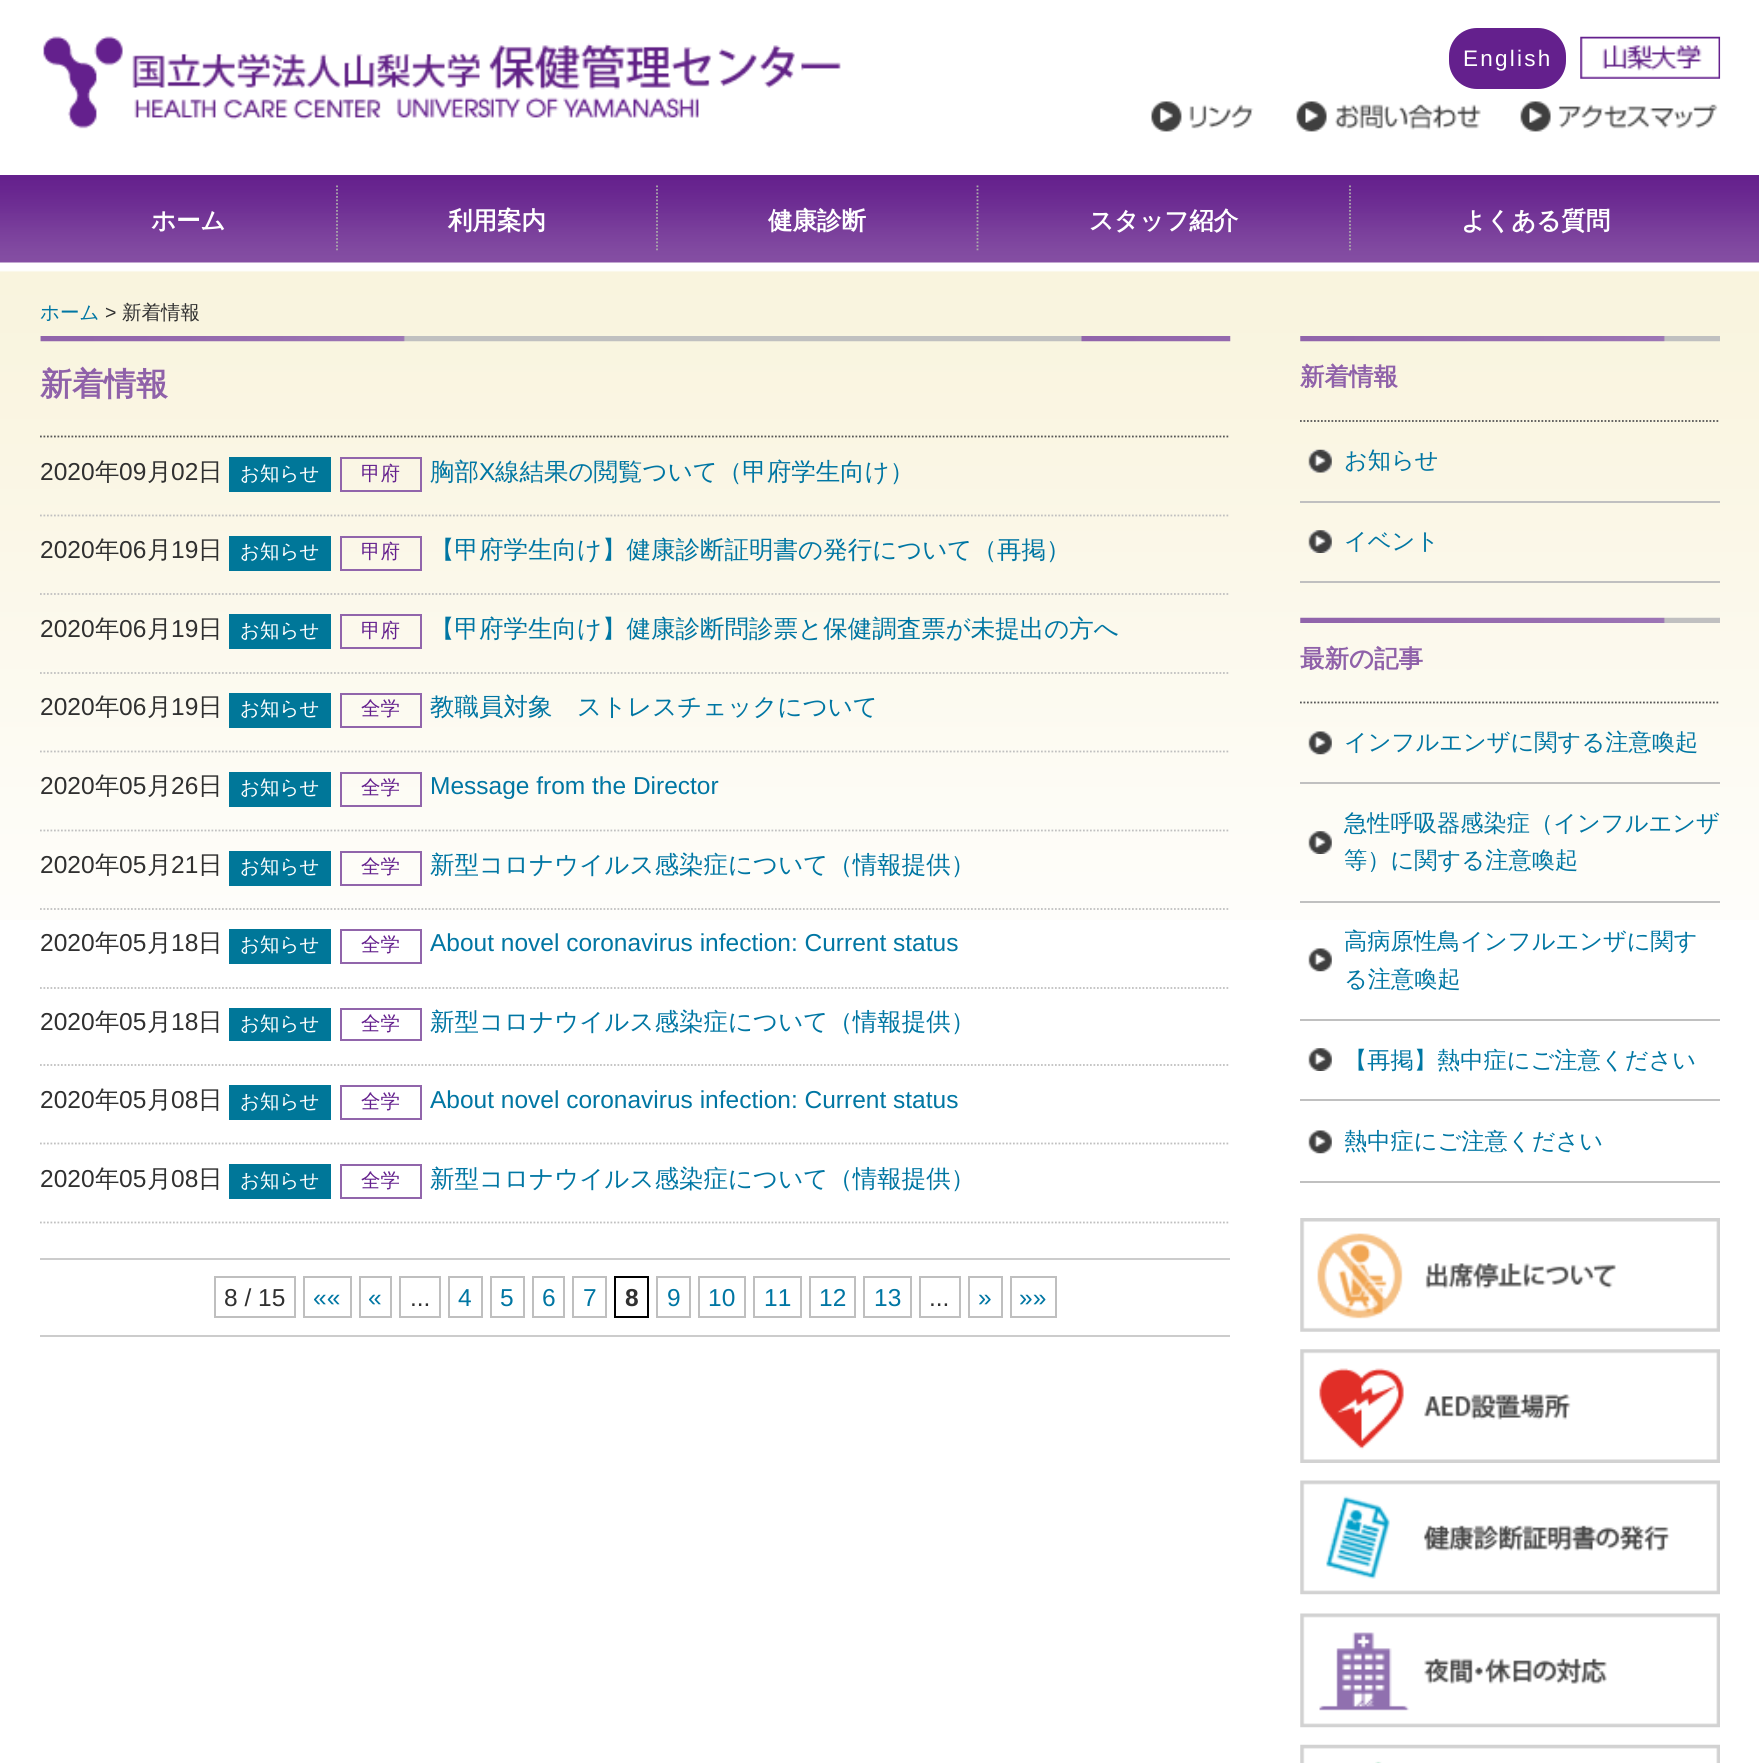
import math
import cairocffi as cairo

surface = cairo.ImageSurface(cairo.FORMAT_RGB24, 1759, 1763)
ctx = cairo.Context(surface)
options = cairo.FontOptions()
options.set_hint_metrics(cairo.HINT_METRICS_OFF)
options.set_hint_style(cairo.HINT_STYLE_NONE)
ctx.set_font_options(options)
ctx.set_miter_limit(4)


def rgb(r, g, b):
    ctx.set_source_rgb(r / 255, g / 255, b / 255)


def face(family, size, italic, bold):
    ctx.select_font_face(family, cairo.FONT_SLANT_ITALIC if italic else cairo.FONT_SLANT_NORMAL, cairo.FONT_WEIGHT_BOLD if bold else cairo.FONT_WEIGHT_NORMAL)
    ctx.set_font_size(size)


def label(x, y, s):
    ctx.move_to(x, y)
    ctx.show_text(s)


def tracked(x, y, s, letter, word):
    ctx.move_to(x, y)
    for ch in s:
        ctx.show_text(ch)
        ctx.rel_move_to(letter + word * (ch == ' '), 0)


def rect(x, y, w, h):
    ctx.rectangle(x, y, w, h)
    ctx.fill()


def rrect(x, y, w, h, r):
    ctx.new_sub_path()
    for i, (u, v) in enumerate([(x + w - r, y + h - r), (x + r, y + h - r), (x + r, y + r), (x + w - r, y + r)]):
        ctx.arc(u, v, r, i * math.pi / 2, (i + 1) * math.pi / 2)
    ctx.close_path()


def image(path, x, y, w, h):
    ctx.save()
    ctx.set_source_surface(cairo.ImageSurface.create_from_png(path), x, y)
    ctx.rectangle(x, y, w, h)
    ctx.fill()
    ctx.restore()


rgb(255, 255, 255)
ctx.paint()
image('image0.png', 43, 36, 798, 93)
rgb(100, 32, 141)
rrect(1449, 28, 117, 61, 28)
ctx.fill()
face('Liberation Sans', 22.5, 0, 0)
rgb(255, 255, 255)
tracked(1463, 66, 'English', 2.25, 0)
image('image1.png', 1580, 36, 141, 43)
image('image2.png', 1151, 101, 103, 31)
image('image3.png', 1296, 101, 185, 31)
image('image4.png', 1520, 101, 198, 31)
image('image5.png', 0, 175, 1759, 745)
face('WenQuanYi Zen Hei', 24.5, 0, 1)
label(151, 229, 'ホーム')
ctx.new_path()
ctx.move_to(337, 185.5)
ctx.line_to(337, 252)
rgb(170, 170, 170)
ctx.set_line_width(1.8)
ctx.set_dash([1.75, 1.75])
ctx.stroke()
rgb(255, 255, 255)
label(448, 229, '利用案内')
ctx.new_path()
ctx.move_to(657, 185.5)
ctx.line_to(657, 252)
rgb(170, 170, 170)
ctx.stroke()
rgb(255, 255, 255)
label(768, 229, '健康診断')
ctx.new_path()
ctx.move_to(977.5, 185.5)
ctx.line_to(977.5, 252)
rgb(170, 170, 170)
ctx.stroke()
rgb(255, 255, 255)
label(1089, 229, 'スタッフ紹介')
ctx.new_path()
ctx.move_to(1350, 185.5)
ctx.line_to(1350, 252)
rgb(170, 170, 170)
ctx.stroke()
rgb(255, 255, 255)
label(1461, 229, 'よくある質問')
face('WenQuanYi Zen Hei Medium', 19.5, 0, 0)
rgb(0, 118, 163)
label(40, 319, 'ホーム')
face('Liberation Sans', 19.5, 0, 0)
rgb(48, 48, 48)
label(105, 319, '>')
face('WenQuanYi Zen Hei Medium', 19.5, 0, 0)
label(122, 319, '新着情報')
image('image6.png', 40, 336, 1191, 6)
ctx.new_path()
ctx.move_to(40, 436.5)
ctx.line_to(1230, 436.5)
rgb(85, 85, 85)
ctx.stroke()
face('WenQuanYi Zen Hei', 32, 0, 1)
rgb(143, 97, 169)
label(40, 395, '新着情報')
ctx.new_path()
ctx.move_to(40, 515.5)
ctx.line_to(1230, 515.5)
rgb(192, 192, 192)
ctx.stroke()
face('Liberation Sans', 24.5, 0, 0)
rgb(48, 48, 48)
label(40, 480, '2020')
face('WenQuanYi Zen Hei Medium', 24.5, 0, 0)
label(95, 480, '年')
face('Liberation Sans', 24.5, 0, 0)
label(119, 480, '09')
face('WenQuanYi Zen Hei Medium', 24.5, 0, 0)
label(147, 480, '月')
face('Liberation Sans', 24.5, 0, 0)
label(171, 480, '02')
face('WenQuanYi Zen Hei Medium', 24.5, 0, 0)
label(198, 480, '日')
rgb(0, 119, 153)
rect(229, 457, 102, 35)
face('WenQuanYi Zen Hei Medium', 19.5, 0, 0)
rgb(255, 255, 255)
label(240, 480, 'お知らせ')
ctx.rectangle(341, 458, 80, 33)
rgb(145, 101, 171)
ctx.set_line_width(2)
ctx.set_dash([])
ctx.stroke()
rgb(100, 32, 141)
label(361, 480, '甲府')
face('WenQuanYi Zen Hei Medium', 24.5, 0, 0)
rgb(0, 118, 163)
label(430, 480, '胸部')
face('Liberation Sans', 24.5, 0, 0)
label(479, 480, 'X')
face('WenQuanYi Zen Hei Medium', 24.5, 0, 0)
label(495, 480, '線結果の閲覧ついて（甲府学生向け）')
ctx.new_path()
ctx.move_to(40, 594)
ctx.line_to(1230, 594)
rgb(192, 192, 192)
ctx.set_line_width(1.8)
ctx.set_dash([1.75, 1.75])
ctx.stroke()
face('Liberation Sans', 24.5, 0, 0)
rgb(48, 48, 48)
label(40, 558, '2020')
face('WenQuanYi Zen Hei Medium', 24.5, 0, 0)
label(95, 558, '年')
face('Liberation Sans', 24.5, 0, 0)
label(119, 558, '06')
face('WenQuanYi Zen Hei Medium', 24.5, 0, 0)
label(147, 558, '月')
face('Liberation Sans', 24.5, 0, 0)
label(171, 558, '19')
face('WenQuanYi Zen Hei Medium', 24.5, 0, 0)
label(198, 558, '日')
rgb(0, 119, 153)
rect(229, 536, 102, 35)
face('WenQuanYi Zen Hei Medium', 19.5, 0, 0)
rgb(255, 255, 255)
label(240, 558, 'お知らせ')
ctx.rectangle(341, 537, 80, 33)
rgb(145, 101, 171)
ctx.set_line_width(2)
ctx.set_dash([])
ctx.stroke()
rgb(100, 32, 141)
label(361, 558, '甲府')
face('WenQuanYi Zen Hei Medium', 24.5, 0, 0)
rgb(0, 118, 163)
label(430, 558, '【甲府学生向け】健康診断証明書の発行について（再掲）')
ctx.new_path()
ctx.move_to(40, 673)
ctx.line_to(1230, 673)
rgb(192, 192, 192)
ctx.set_line_width(1.8)
ctx.set_dash([1.75, 1.75])
ctx.stroke()
face('Liberation Sans', 24.5, 0, 0)
rgb(48, 48, 48)
label(40, 637, '2020')
face('WenQuanYi Zen Hei Medium', 24.5, 0, 0)
label(95, 637, '年')
face('Liberation Sans', 24.5, 0, 0)
label(119, 637, '06')
face('WenQuanYi Zen Hei Medium', 24.5, 0, 0)
label(147, 637, '月')
face('Liberation Sans', 24.5, 0, 0)
label(171, 637, '19')
face('WenQuanYi Zen Hei Medium', 24.5, 0, 0)
label(198, 637, '日')
rgb(0, 119, 153)
rect(229, 614, 102, 35)
face('WenQuanYi Zen Hei Medium', 19.5, 0, 0)
rgb(255, 255, 255)
label(240, 637, 'お知らせ')
ctx.rectangle(341, 615, 80, 33)
rgb(145, 101, 171)
ctx.set_line_width(2)
ctx.set_dash([])
ctx.stroke()
rgb(100, 32, 141)
label(361, 637, '甲府')
face('WenQuanYi Zen Hei Medium', 24.5, 0, 0)
rgb(0, 118, 163)
label(430, 637, '【甲府学生向け】健康診断問診票と保健調査票が未提出の方へ')
ctx.new_path()
ctx.move_to(40, 751.5)
ctx.line_to(1230, 751.5)
rgb(192, 192, 192)
ctx.set_line_width(1.8)
ctx.set_dash([1.75, 1.75])
ctx.stroke()
face('Liberation Sans', 24.5, 0, 0)
rgb(48, 48, 48)
label(40, 715, '2020')
face('WenQuanYi Zen Hei Medium', 24.5, 0, 0)
label(95, 715, '年')
face('Liberation Sans', 24.5, 0, 0)
label(119, 715, '06')
face('WenQuanYi Zen Hei Medium', 24.5, 0, 0)
label(147, 715, '月')
face('Liberation Sans', 24.5, 0, 0)
label(171, 715, '19')
face('WenQuanYi Zen Hei Medium', 24.5, 0, 0)
label(198, 715, '日')
rgb(0, 119, 153)
rect(229, 693, 102, 35)
face('WenQuanYi Zen Hei Medium', 19.5, 0, 0)
rgb(255, 255, 255)
label(240, 715, 'お知らせ')
ctx.rectangle(341, 694, 80, 33)
rgb(145, 101, 171)
ctx.set_line_width(2)
ctx.set_dash([])
ctx.stroke()
rgb(100, 32, 141)
label(361, 715, '全学')
face('WenQuanYi Zen Hei Medium', 24.5, 0, 0)
rgb(0, 118, 163)
label(430, 715, '教職員対象　ストレスチェックについて')
ctx.new_path()
ctx.move_to(40, 830.5)
ctx.line_to(1230, 830.5)
rgb(192, 192, 192)
ctx.set_line_width(1.8)
ctx.set_dash([1.75, 1.75])
ctx.stroke()
face('Liberation Sans', 24.5, 0, 0)
rgb(48, 48, 48)
label(40, 794, '2020')
face('WenQuanYi Zen Hei Medium', 24.5, 0, 0)
label(95, 794, '年')
face('Liberation Sans', 24.5, 0, 0)
label(119, 794, '05')
face('WenQuanYi Zen Hei Medium', 24.5, 0, 0)
label(147, 794, '月')
face('Liberation Sans', 24.5, 0, 0)
label(171, 794, '26')
face('WenQuanYi Zen Hei Medium', 24.5, 0, 0)
label(198, 794, '日')
rgb(0, 119, 153)
rect(229, 772, 102, 35)
face('WenQuanYi Zen Hei Medium', 19.5, 0, 0)
rgb(255, 255, 255)
label(240, 794, 'お知らせ')
ctx.rectangle(341, 773, 80, 33)
rgb(145, 101, 171)
ctx.set_line_width(2)
ctx.set_dash([])
ctx.stroke()
rgb(100, 32, 141)
label(361, 794, '全学')
face('Liberation Sans', 24.5, 0, 0)
rgb(0, 118, 163)
label(430, 794, 'Message from the Director')
ctx.new_path()
ctx.move_to(40, 909)
ctx.line_to(1230, 909)
rgb(192, 192, 192)
ctx.set_line_width(1.8)
ctx.set_dash([1.75, 1.75])
ctx.stroke()
rgb(48, 48, 48)
label(40, 873, '2020')
face('WenQuanYi Zen Hei Medium', 24.5, 0, 0)
label(95, 873, '年')
face('Liberation Sans', 24.5, 0, 0)
label(119, 873, '05')
face('WenQuanYi Zen Hei Medium', 24.5, 0, 0)
label(147, 873, '月')
face('Liberation Sans', 24.5, 0, 0)
label(171, 873, '21')
face('WenQuanYi Zen Hei Medium', 24.5, 0, 0)
label(198, 873, '日')
rgb(0, 119, 153)
rect(229, 851, 102, 35)
face('WenQuanYi Zen Hei Medium', 19.5, 0, 0)
rgb(255, 255, 255)
label(240, 873, 'お知らせ')
ctx.rectangle(341, 852, 80, 33)
rgb(145, 101, 171)
ctx.set_line_width(2)
ctx.set_dash([])
ctx.stroke()
rgb(100, 32, 141)
label(361, 873, '全学')
face('WenQuanYi Zen Hei Medium', 24.5, 0, 0)
rgb(0, 118, 163)
label(430, 873, '新型コロナウイルス感染症について（情報提供）')
ctx.new_path()
ctx.move_to(40, 988)
ctx.line_to(1230, 988)
rgb(192, 192, 192)
ctx.set_line_width(1.8)
ctx.set_dash([1.75, 1.75])
ctx.stroke()
face('Liberation Sans', 24.5, 0, 0)
rgb(48, 48, 48)
label(40, 951, '2020')
face('WenQuanYi Zen Hei Medium', 24.5, 0, 0)
label(95, 951, '年')
face('Liberation Sans', 24.5, 0, 0)
label(119, 951, '05')
face('WenQuanYi Zen Hei Medium', 24.5, 0, 0)
label(147, 951, '月')
face('Liberation Sans', 24.5, 0, 0)
label(171, 951, '18')
face('WenQuanYi Zen Hei Medium', 24.5, 0, 0)
label(198, 951, '日')
rgb(0, 119, 153)
rect(229, 929, 102, 35)
face('WenQuanYi Zen Hei Medium', 19.5, 0, 0)
rgb(255, 255, 255)
label(240, 951, 'お知らせ')
ctx.rectangle(341, 930, 80, 33)
rgb(145, 101, 171)
ctx.set_line_width(2)
ctx.set_dash([])
ctx.stroke()
rgb(100, 32, 141)
label(361, 951, '全学')
face('Liberation Sans', 24.5, 0, 0)
rgb(0, 118, 163)
label(430, 951, 'About novel coronavirus infection: Current status')
ctx.new_path()
ctx.move_to(40, 1065)
ctx.line_to(1230, 1065)
rgb(192, 192, 192)
ctx.set_line_width(1.8)
ctx.set_dash([1.75, 1.75])
ctx.stroke()
rgb(48, 48, 48)
label(40, 1030, '2020')
face('WenQuanYi Zen Hei Medium', 24.5, 0, 0)
label(95, 1030, '年')
face('Liberation Sans', 24.5, 0, 0)
label(119, 1030, '05')
face('WenQuanYi Zen Hei Medium', 24.5, 0, 0)
label(147, 1030, '月')
face('Liberation Sans', 24.5, 0, 0)
label(171, 1030, '18')
face('WenQuanYi Zen Hei Medium', 24.5, 0, 0)
label(198, 1030, '日')
rgb(0, 119, 153)
rect(229, 1008, 102, 33)
face('WenQuanYi Zen Hei Medium', 19.5, 0, 0)
rgb(255, 255, 255)
label(240, 1030, 'お知らせ')
ctx.rectangle(341, 1009, 80, 31)
rgb(145, 101, 171)
ctx.set_line_width(2)
ctx.set_dash([])
ctx.stroke()
rgb(100, 32, 141)
label(361, 1030, '全学')
face('WenQuanYi Zen Hei Medium', 24.5, 0, 0)
rgb(0, 118, 163)
label(430, 1030, '新型コロナウイルス感染症について（情報提供）')
ctx.new_path()
ctx.move_to(40, 1143.5)
ctx.line_to(1230, 1143.5)
rgb(192, 192, 192)
ctx.set_line_width(1.8)
ctx.set_dash([1.75, 1.75])
ctx.stroke()
face('Liberation Sans', 24.5, 0, 0)
rgb(48, 48, 48)
label(40, 1108, '2020')
face('WenQuanYi Zen Hei Medium', 24.5, 0, 0)
label(95, 1108, '年')
face('Liberation Sans', 24.5, 0, 0)
label(119, 1108, '05')
face('WenQuanYi Zen Hei Medium', 24.5, 0, 0)
label(147, 1108, '月')
face('Liberation Sans', 24.5, 0, 0)
label(171, 1108, '08')
face('WenQuanYi Zen Hei Medium', 24.5, 0, 0)
label(198, 1108, '日')
rgb(0, 119, 153)
rect(229, 1085, 102, 35)
face('WenQuanYi Zen Hei Medium', 19.5, 0, 0)
rgb(255, 255, 255)
label(240, 1108, 'お知らせ')
ctx.rectangle(341, 1086, 80, 33)
rgb(145, 101, 171)
ctx.set_line_width(2)
ctx.set_dash([])
ctx.stroke()
rgb(100, 32, 141)
label(361, 1108, '全学')
face('Liberation Sans', 24.5, 0, 0)
rgb(0, 118, 163)
label(430, 1108, 'About novel coronavirus infection: Current status')
ctx.new_path()
ctx.move_to(40, 1222.5)
ctx.line_to(1230, 1222.5)
rgb(192, 192, 192)
ctx.set_line_width(1.8)
ctx.set_dash([1.75, 1.75])
ctx.stroke()
rgb(48, 48, 48)
label(40, 1187, '2020')
face('WenQuanYi Zen Hei Medium', 24.5, 0, 0)
label(95, 1187, '年')
face('Liberation Sans', 24.5, 0, 0)
label(119, 1187, '05')
face('WenQuanYi Zen Hei Medium', 24.5, 0, 0)
label(147, 1187, '月')
face('Liberation Sans', 24.5, 0, 0)
label(171, 1187, '08')
face('WenQuanYi Zen Hei Medium', 24.5, 0, 0)
label(198, 1187, '日')
rgb(0, 119, 153)
rect(229, 1164, 102, 35)
face('WenQuanYi Zen Hei Medium', 19.5, 0, 0)
rgb(255, 255, 255)
label(240, 1187, 'お知らせ')
ctx.rectangle(341, 1165, 80, 33)
rgb(145, 101, 171)
ctx.set_line_width(2)
ctx.set_dash([])
ctx.stroke()
rgb(100, 32, 141)
label(361, 1187, '全学')
face('WenQuanYi Zen Hei Medium', 24.5, 0, 0)
rgb(0, 118, 163)
label(430, 1187, '新型コロナウイルス感染症について（情報提供）')
rgb(204, 204, 204)
rect(40, 1258, 1190, 2)
rect(40, 1335, 1190, 2)
ctx.rectangle(215, 1277, 80, 40)
rgb(191, 191, 191)
ctx.stroke()
face('Liberation Sans', 24.5, 0, 0)
rgb(48, 48, 48)
label(224, 1306, '8 / 15')
ctx.rectangle(304, 1277, 47, 40)
rgb(191, 191, 191)
ctx.stroke()
rgb(0, 118, 163)
label(313, 1306, '««')
ctx.rectangle(360, 1277, 31, 40)
rgb(191, 191, 191)
ctx.stroke()
rgb(0, 118, 163)
label(368, 1306, '«')
ctx.rectangle(400, 1277, 40, 40)
rgb(191, 191, 191)
ctx.stroke()
rgb(48, 48, 48)
label(410, 1306, '...')
ctx.rectangle(449, 1277, 33, 40)
rgb(191, 191, 191)
ctx.stroke()
rgb(0, 118, 163)
label(458, 1306, '4')
ctx.rectangle(491, 1277, 33, 40)
rgb(191, 191, 191)
ctx.stroke()
rgb(0, 118, 163)
label(500, 1306, '5')
ctx.rectangle(533, 1277, 31, 40)
rgb(191, 191, 191)
ctx.stroke()
rgb(0, 118, 163)
label(542, 1306, '6')
ctx.rectangle(573, 1277, 33, 40)
rgb(191, 191, 191)
ctx.stroke()
rgb(0, 118, 163)
label(583, 1306, '7')
ctx.rectangle(615, 1277, 33, 40)
rgb(0, 0, 0)
ctx.stroke()
face('Liberation Sans', 24.5, 0, 1)
rgb(48, 48, 48)
label(625, 1306, '8')
ctx.rectangle(657, 1277, 33, 40)
rgb(191, 191, 191)
ctx.stroke()
face('Liberation Sans', 24.5, 0, 0)
rgb(0, 118, 163)
label(667, 1306, '9')
ctx.rectangle(699, 1277, 46, 40)
rgb(191, 191, 191)
ctx.stroke()
rgb(0, 118, 163)
label(708, 1306, '10')
ctx.rectangle(754, 1277, 47, 40)
rgb(191, 191, 191)
ctx.stroke()
rgb(0, 118, 163)
label(764, 1306, '11')
ctx.rectangle(810, 1277, 45, 40)
rgb(191, 191, 191)
ctx.stroke()
rgb(0, 118, 163)
label(819, 1306, '12')
ctx.rectangle(864, 1277, 47, 40)
rgb(191, 191, 191)
ctx.stroke()
rgb(0, 118, 163)
label(874, 1306, '13')
ctx.rectangle(920, 1277, 40, 40)
rgb(191, 191, 191)
ctx.stroke()
rgb(48, 48, 48)
label(929, 1306, '...')
ctx.rectangle(969, 1277, 33, 40)
rgb(191, 191, 191)
ctx.stroke()
rgb(0, 118, 163)
label(978, 1306, '»')
ctx.rectangle(1011, 1277, 45, 40)
rgb(191, 191, 191)
ctx.stroke()
rgb(0, 118, 163)
label(1019, 1306, '»»')
image('image7.png', 1300, 336, 420, 6)
ctx.new_path()
ctx.move_to(1300, 421)
ctx.line_to(1720, 421)
rgb(85, 85, 85)
ctx.set_line_width(1.8)
ctx.set_dash([1.75, 1.75])
ctx.stroke()
face('WenQuanYi Zen Hei', 24.5, 0, 1)
rgb(143, 97, 169)
label(1300, 385, '新着情報')
rgb(192, 192, 192)
rect(1300, 501, 420, 2)
image('image8.png', 1308, 449, 24, 24)
face('WenQuanYi Zen Hei Medium', 23.25, 0, 0)
rgb(0, 118, 163)
label(1344, 468, 'お知らせ')
rgb(192, 192, 192)
rect(1300, 581, 420, 2)
image('image9.png', 1308, 530, 24, 23)
rgb(0, 118, 163)
label(1344, 549, 'イベント')
image('image10.png', 1300, 617, 420, 6)
ctx.new_path()
ctx.move_to(1300, 702.5)
ctx.line_to(1720, 702.5)
rgb(85, 85, 85)
ctx.stroke()
face('WenQuanYi Zen Hei', 24.5, 0, 1)
rgb(143, 97, 169)
label(1300, 667, '最新の記事')
rgb(192, 192, 192)
rect(1300, 782, 420, 2)
image('image11.png', 1308, 731, 24, 24)
face('WenQuanYi Zen Hei Medium', 23.25, 0, 0)
rgb(0, 118, 163)
label(1344, 750, 'インフルエンザに関する注意喚起')
rgb(192, 192, 192)
rect(1300, 901, 420, 2)
image('image12.png', 1308, 831, 24, 23)
rgb(0, 118, 163)
label(1344, 831, '急性呼吸器感染症（インフルエンザ')
label(1344, 868, '等）に関する注意喚起')
rgb(192, 192, 192)
rect(1300, 1019, 420, 2)
image('image13.png', 1308, 948, 24, 24)
rgb(0, 118, 163)
label(1344, 949, '高病原性鳥インフルエンザに関す')
label(1344, 987, 'る注意喚起')
rgb(192, 192, 192)
rect(1300, 1099, 420, 2)
image('image14.png', 1308, 1048, 24, 23)
rgb(0, 118, 163)
label(1344, 1068, '【再掲】熱中症にご注意ください')
rgb(192, 192, 192)
rect(1300, 1181, 420, 2)
image('image13.png', 1308, 1130, 24, 24)
rgb(0, 118, 163)
label(1344, 1149, '熱中症にご注意ください')
image('image15.png', 1300, 1218, 420, 114)
image('image16.png', 1300, 1349, 420, 114)
image('image17.png', 1300, 1480, 420, 115)
image('image18.png', 1300, 1613, 420, 115)
image('image19.png', 1300, 1744, 420, 19)
surface.write_to_png('render.png')
